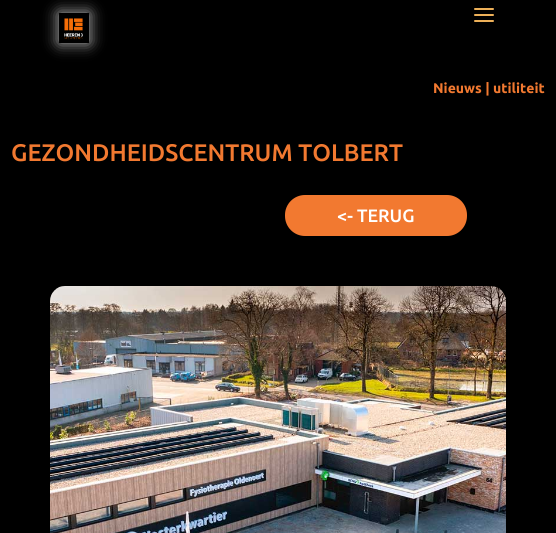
import math
import cairocffi as cairo

surface = cairo.ImageSurface(cairo.FORMAT_RGB24, 556, 533)
ctx = cairo.Context(surface)
options = cairo.FontOptions()
options.set_hint_metrics(cairo.HINT_METRICS_OFF)
options.set_hint_style(cairo.HINT_STYLE_NONE)
ctx.set_font_options(options)
ctx.set_miter_limit(4)


def rgb(r, g, b):
    ctx.set_source_rgb(r / 255, g / 255, b / 255)


def face(family, size, italic, bold):
    ctx.select_font_face(family, cairo.FONT_SLANT_ITALIC if italic else cairo.FONT_SLANT_NORMAL, cairo.FONT_WEIGHT_BOLD if bold else cairo.FONT_WEIGHT_NORMAL)
    ctx.set_font_size(size)


def label(x, y, s):
    ctx.move_to(x, y)
    ctx.show_text(s)


def rrect(x, y, w, h, r):
    ctx.new_sub_path()
    for i, (u, v) in enumerate([(x + w - r, y + h - r), (x + r, y + h - r), (x + r, y + r), (x + w - r, y + r)]):
        ctx.arc(u, v, r, i * math.pi / 2, (i + 1) * math.pi / 2)
    ctx.close_path()


def soft_shadow(x, y, w, h, r, blur, alpha):
    ctx.push_group_with_content(cairo.CONTENT_ALPHA)
    ctx.set_operator(cairo.OPERATOR_SOURCE)
    for i in range(15, -16, -2):
        e = blur * i / 6
        if min(w, h) + 2 * e > 0:
            ctx.set_source_rgba(0, 0, 0, alpha * math.erfc((i - 1) / 8.5) / 2)
            rrect(x - e, y - e, w + 2 * e, h + 2 * e, max(0, min(r + e + blur * .6, min(w, h) / 2 + e)))
            ctx.fill()
    ctx.mask(ctx.pop_group())


def image(path, x, y, w, h):
    ctx.save()
    ctx.set_source_surface(cairo.ImageSurface.create_from_png(path), x, y)
    ctx.rectangle(x, y, w, h)
    ctx.fill()
    ctx.restore()


rgb(0, 0, 0)
ctx.paint()
ctx.save()
ctx.set_fill_rule(cairo.FILL_RULE_EVEN_ODD)
ctx.new_path()
ctx.move_to(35, 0)
ctx.line_to(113, 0)
ctx.line_to(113, 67)
ctx.line_to(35, 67)
ctx.close_path()
ctx.move_to(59, 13)
ctx.line_to(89, 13)
ctx.line_to(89, 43)
ctx.line_to(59, 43)
ctx.close_path()
ctx.clip()
rgb(255, 255, 255)
soft_shadow(59, 13, 30, 30, 0, 7.5, 0.75)
ctx.restore()
image('image0.png', 64, 18, 19, 22)
image('image1.png', 474, 8, 20, 14)
face('Ubuntu', 14, 0, 1)
rgb(242, 121, 48)
label(433, 93, 'Nieuws | utiliteit')
face('Ubuntu Medium', 24, 0, 0)
label(11, 161, 'GEZONDHEIDSCENTRUM TOLBERT')
rrect(285, 195, 182, 41, 20)
ctx.fill()
face('Ubuntu Medium', 18, 0, 0)
rgb(255, 255, 255)
label(337, 222, '<- TERUG')
image('image2.png', 50, 286, 456, 247)
surface.write_to_png('render.png')
